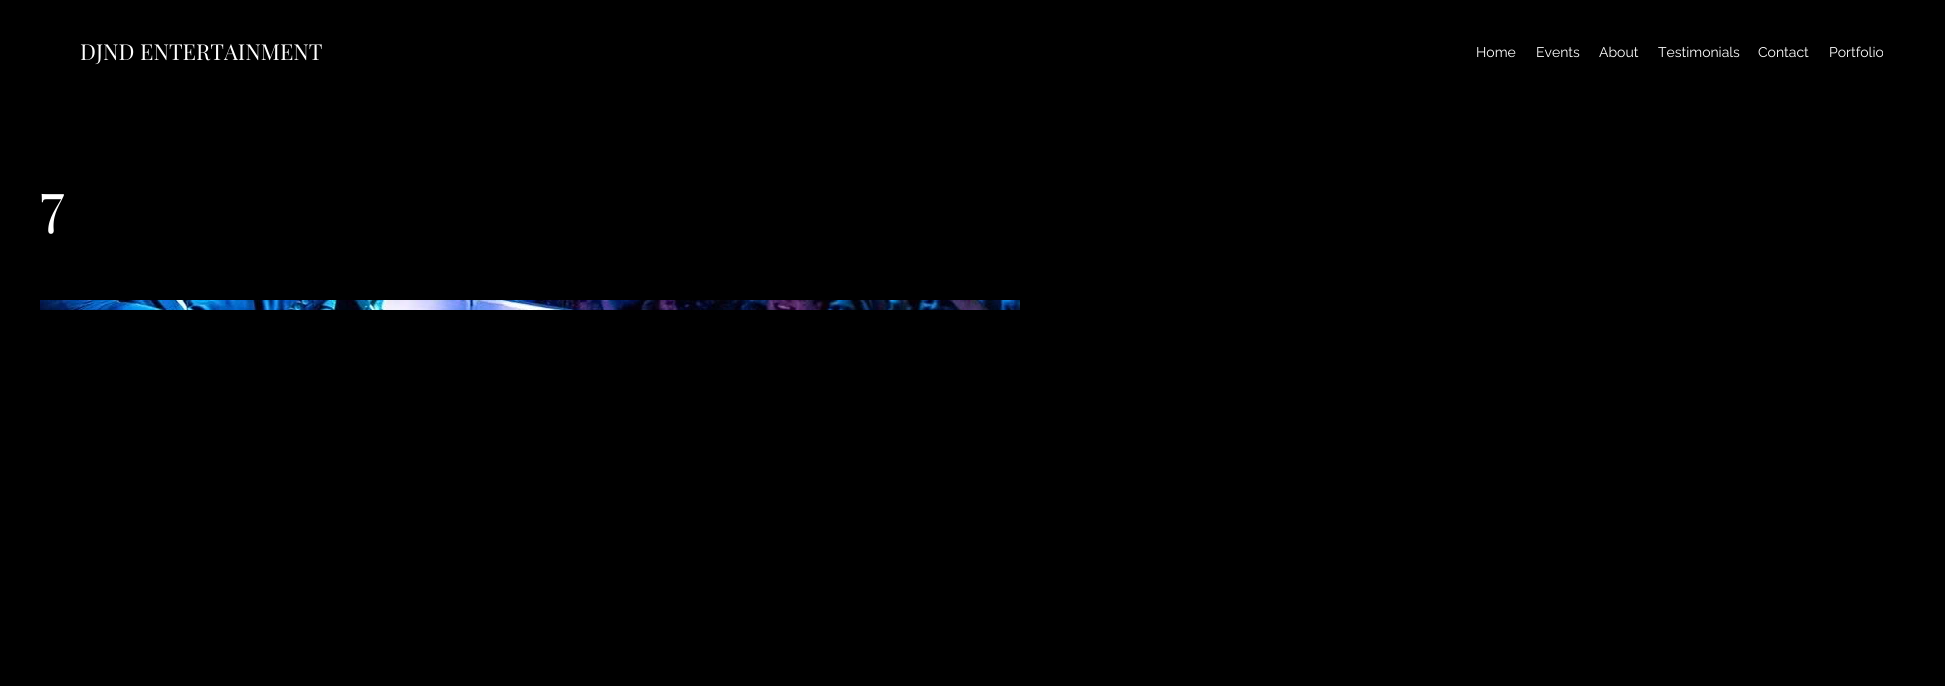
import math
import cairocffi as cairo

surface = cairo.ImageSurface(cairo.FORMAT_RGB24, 1945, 686)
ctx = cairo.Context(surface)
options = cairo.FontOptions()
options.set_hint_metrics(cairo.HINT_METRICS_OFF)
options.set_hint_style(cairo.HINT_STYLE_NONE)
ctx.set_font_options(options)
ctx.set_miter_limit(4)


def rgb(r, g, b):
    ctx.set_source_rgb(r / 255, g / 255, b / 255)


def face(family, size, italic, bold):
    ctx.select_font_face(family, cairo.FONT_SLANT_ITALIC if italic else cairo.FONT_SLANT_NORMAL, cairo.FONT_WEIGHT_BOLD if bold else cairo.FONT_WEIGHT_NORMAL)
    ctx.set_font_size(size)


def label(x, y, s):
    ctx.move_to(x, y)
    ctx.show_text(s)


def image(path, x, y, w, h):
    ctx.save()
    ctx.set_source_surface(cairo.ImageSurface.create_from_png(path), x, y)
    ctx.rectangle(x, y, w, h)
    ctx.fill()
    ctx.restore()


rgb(0, 0, 0)
ctx.paint()
face('Playfair Display', 22, 0, 0)
rgb(255, 255, 255)
label(80, 60, 'DJND ENTERTAINMENT')
face('Raleway', 14, 0, 0)
label(1476, 57, 'Home')
label(1536, 57, 'Events')
label(1599, 57, 'About')
label(1658, 57, 'Testimonials')
label(1758, 57, 'Contact')
label(1829, 57, 'Portfolio')
face('Playfair Display', 60, 0, 0)
label(40, 225, '7')
image('image0.png', 40, 300, 980, 10)
surface.write_to_png('render.png')
